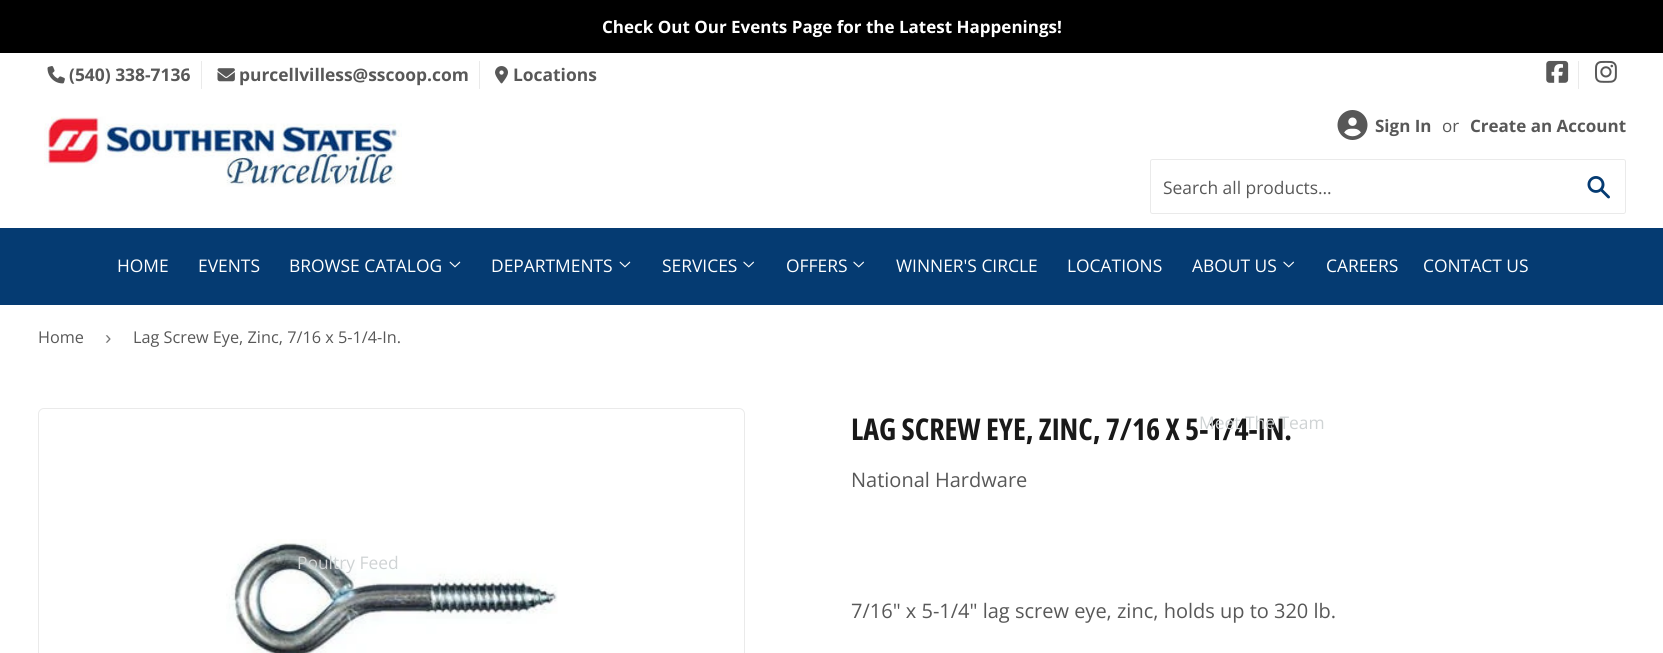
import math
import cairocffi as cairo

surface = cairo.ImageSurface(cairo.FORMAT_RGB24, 1663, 653)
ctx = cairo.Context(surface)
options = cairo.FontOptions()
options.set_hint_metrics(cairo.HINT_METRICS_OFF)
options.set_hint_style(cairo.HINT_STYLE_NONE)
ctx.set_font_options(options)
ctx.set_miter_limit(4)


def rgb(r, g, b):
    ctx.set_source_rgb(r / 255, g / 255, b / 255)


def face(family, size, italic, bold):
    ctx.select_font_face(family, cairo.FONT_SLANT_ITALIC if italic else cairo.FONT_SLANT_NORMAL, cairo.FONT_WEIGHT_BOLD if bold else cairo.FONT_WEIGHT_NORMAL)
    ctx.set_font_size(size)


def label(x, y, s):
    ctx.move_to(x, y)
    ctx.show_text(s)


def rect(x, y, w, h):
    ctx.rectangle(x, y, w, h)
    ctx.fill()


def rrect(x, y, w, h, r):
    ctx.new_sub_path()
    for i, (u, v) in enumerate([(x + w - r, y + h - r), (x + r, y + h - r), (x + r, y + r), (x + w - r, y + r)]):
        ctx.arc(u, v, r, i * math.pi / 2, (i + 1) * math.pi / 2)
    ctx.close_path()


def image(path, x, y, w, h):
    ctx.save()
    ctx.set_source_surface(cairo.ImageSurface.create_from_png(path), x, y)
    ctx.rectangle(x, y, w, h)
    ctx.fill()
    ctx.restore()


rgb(255, 255, 255)
ctx.paint()
rgb(0, 0, 0)
rect(0, 0, 1663, 53)
face('Open Sans', 17, 0, 1)
rgb(255, 255, 255)
label(602, 33, 'Check Out Our Events Page for the Latest Happenings!')
rgb(234, 234, 234)
rect(201, 61, 1, 28)
image('image0.png', 47, 66, 18, 18)
face('Open Sans', 17.4, 0, 1)
rgb(88, 88, 88)
label(69, 81, '(540) 338-7136')
rgb(234, 234, 234)
rect(479, 61, 1, 28)
image('image1.png', 217, 68, 18, 14)
rgb(88, 88, 88)
label(239, 81, 'purcellvilless@sscoop.com')
image('image2.png', 495, 66, 13, 18)
label(513, 81, 'Locations')
rgb(234, 234, 234)
rect(1578, 61, 1, 28)
image('image3.png', 1546, 60, 23, 23)
image('image4.png', 1595, 60, 22, 23)
image('image5.png', 44, 116, 358, 71)
image('image6.png', 1337, 110, 31, 30)
face('Open Sans', 17, 0, 1)
rgb(88, 88, 88)
label(1375, 132, 'Sign In')
face('Open Sans', 17, 0, 0)
label(1442, 132, 'or')
face('Open Sans', 17, 0, 1)
label(1470, 132, 'Create an Account')
rrect(1150.5, 159.5, 475, 54, 2)
rgb(234, 234, 234)
ctx.set_line_width(1)
ctx.stroke()
face('Open Sans', 17.4, 0, 0)
rgb(88, 88, 88)
label(1163, 194, 'Search all products...')
image('image7.png', 1587, 176, 23, 23)
rgb(5, 59, 114)
rect(0, 228, 1663, 77)
rgb(255, 255, 255)
label(117, 272, 'HOME')
label(198, 272, 'EVENTS')
label(289, 272, 'BROWSE CATALOG')
image('image8.png', 449, 261, 12, 7)
rrect(38.5, 408.5, 706, 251, 5.5)
rgb(234, 234, 234)
ctx.stroke()
image('image10.png', 226, 539, 332, 114)
rgb(207, 211, 212)
label(297, 569, 'Poultry Feed')
rgb(255, 255, 255)
label(491, 272, 'DEPARTMENTS')
image('image8.png', 619, 261, 12, 7)
label(662, 272, 'SERVICES')
image('image9.png', 743, 261, 11, 7)
label(786, 272, 'OFFERS')
image('image9.png', 853, 261, 11, 7)
label(896, 272, 'WINNER\'S CIRCLE')
label(1067, 272, 'LOCATIONS')
label(1192, 272, 'ABOUT US')
image('image9.png', 1283, 261, 11, 7)
face('Open Sans Condensed', 30, 0, 1)
rgb(25, 25, 25)
label(851, 440, 'LAG SCREW EYE, ZINC, 7/16 X 5-1/4-IN.')
face('Open Sans', 17.4, 0, 0)
rgb(207, 211, 212)
label(1199, 429, 'Meet The Team')
rgb(255, 255, 255)
label(1326, 272, 'CAREERS')
label(1423, 272, 'CONTACT US')
face('Open Sans', 16.25, 0, 0)
rgb(88, 88, 88)
label(38, 343, 'Home')
face('Liberation Sans', 19, 0, 0)
rgb(118, 118, 118)
label(105, 344, '›')
face('Open Sans', 16.25, 0, 0)
rgb(88, 88, 88)
label(133, 343, 'Lag Screw Eye, Zinc, 7/16 x 5-1/4-In.')
face('Open Sans', 20, 0, 0)
label(851, 487, 'National Hardware')
label(851, 618, '7/16" x 5-1/4" lag screw eye, zinc, holds up to 320 lb.')
surface.write_to_png('render.png')
